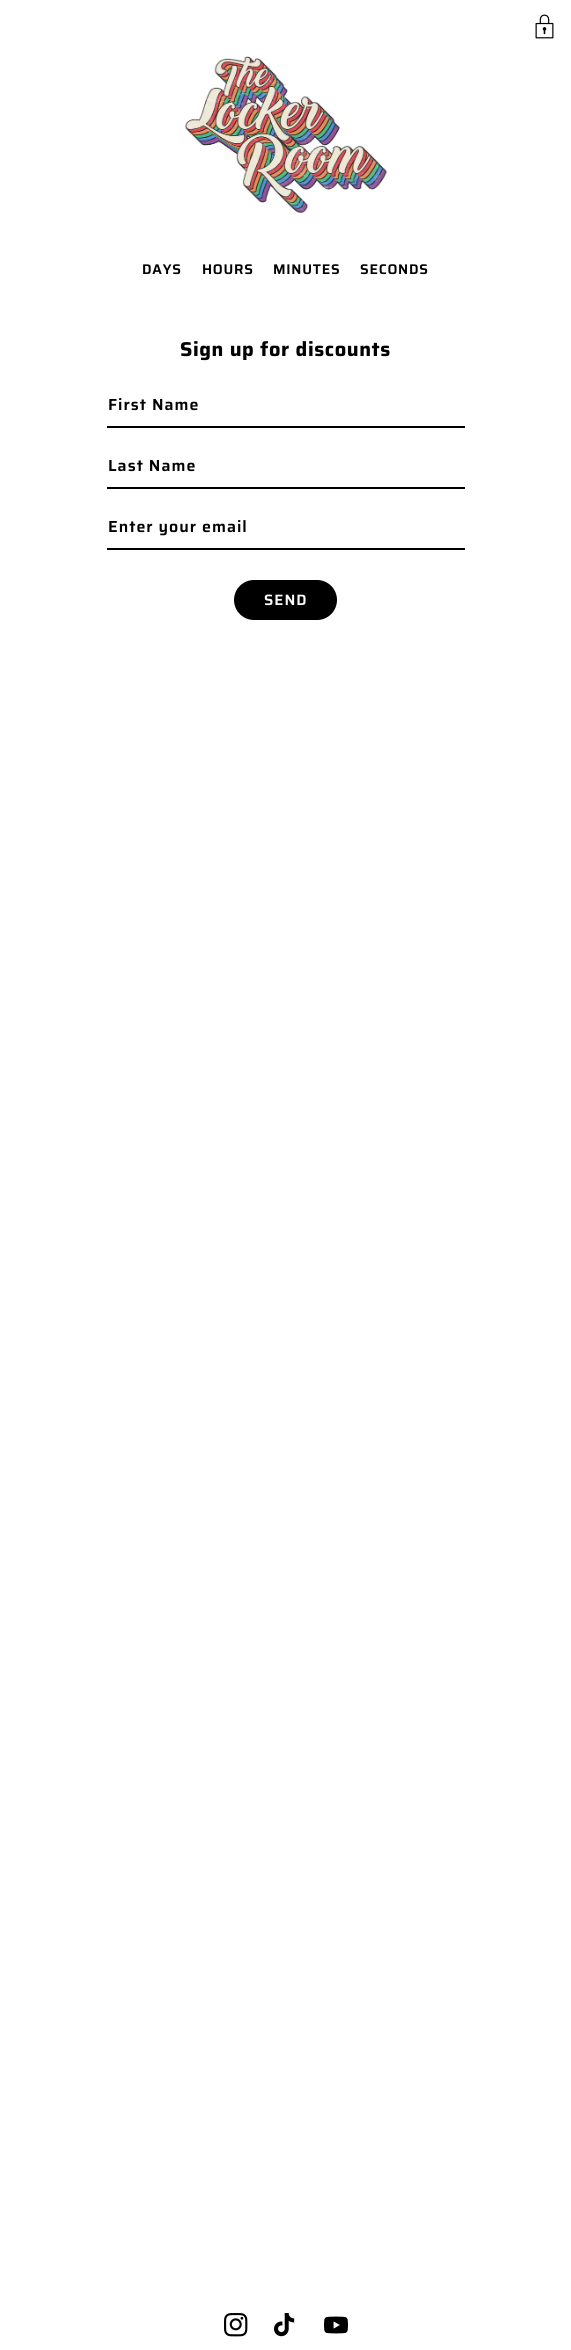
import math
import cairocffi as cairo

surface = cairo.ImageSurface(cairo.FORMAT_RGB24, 571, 2350)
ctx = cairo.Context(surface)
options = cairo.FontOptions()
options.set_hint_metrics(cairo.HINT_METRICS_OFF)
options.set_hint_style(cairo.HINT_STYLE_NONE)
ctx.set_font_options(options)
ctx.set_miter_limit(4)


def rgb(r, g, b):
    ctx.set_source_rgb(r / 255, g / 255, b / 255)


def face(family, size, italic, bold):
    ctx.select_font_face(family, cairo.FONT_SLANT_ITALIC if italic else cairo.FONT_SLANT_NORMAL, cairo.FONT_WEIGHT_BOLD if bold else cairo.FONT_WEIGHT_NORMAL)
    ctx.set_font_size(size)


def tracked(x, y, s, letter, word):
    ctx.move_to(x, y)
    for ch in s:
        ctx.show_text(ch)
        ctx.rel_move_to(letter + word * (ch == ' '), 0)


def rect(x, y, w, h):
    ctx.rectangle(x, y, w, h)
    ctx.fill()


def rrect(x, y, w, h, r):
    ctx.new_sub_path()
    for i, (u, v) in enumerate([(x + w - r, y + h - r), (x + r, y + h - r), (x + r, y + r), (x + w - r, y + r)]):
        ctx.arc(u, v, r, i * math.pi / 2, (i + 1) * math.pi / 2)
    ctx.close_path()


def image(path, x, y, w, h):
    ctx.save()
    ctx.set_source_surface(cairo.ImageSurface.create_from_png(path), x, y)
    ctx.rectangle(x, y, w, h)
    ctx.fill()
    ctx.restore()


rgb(255, 255, 255)
ctx.paint()
image('image0.png', 535, 14, 19, 25)
image('image1.png', 184, 56, 204, 157)
face('Saira SemiBold', 14, 0, 0)
rgb(0, 0, 0)
tracked(142, 274, 'DAYS', 0.75, 0)
tracked(202, 274, 'HOURS', 0.75, 0)
tracked(273, 274, 'MINUTES', 0.75, 0)
tracked(360, 274, 'SECONDS', 0.75, 0)
face('Saira', 20, 0, 1)
tracked(180, 356, 'Sign up for discounts', 0.6, 0)
face('Saira SemiBold', 16, 0, 0)
tracked(108, 410, 'First Name', 1, 0)
rect(107, 426, 358, 2)
tracked(108, 471, 'Last Name', 1, 0)
rect(107, 487, 358, 2)
tracked(108, 532, 'Enter your email', 1, 0)
rect(107, 548, 358, 2)
rrect(234, 580, 103, 40, 20)
ctx.fill()
face('Saira SemiBold', 15, 0, 0)
rgb(255, 255, 255)
tracked(264, 605, 'SEND', 1, 0)
image('image2.png', 224, 2313, 24, 24)
image('image3.png', 274, 2313, 21, 24)
image('image4.png', 324, 2316, 24, 18)
surface.write_to_png('render.png')
